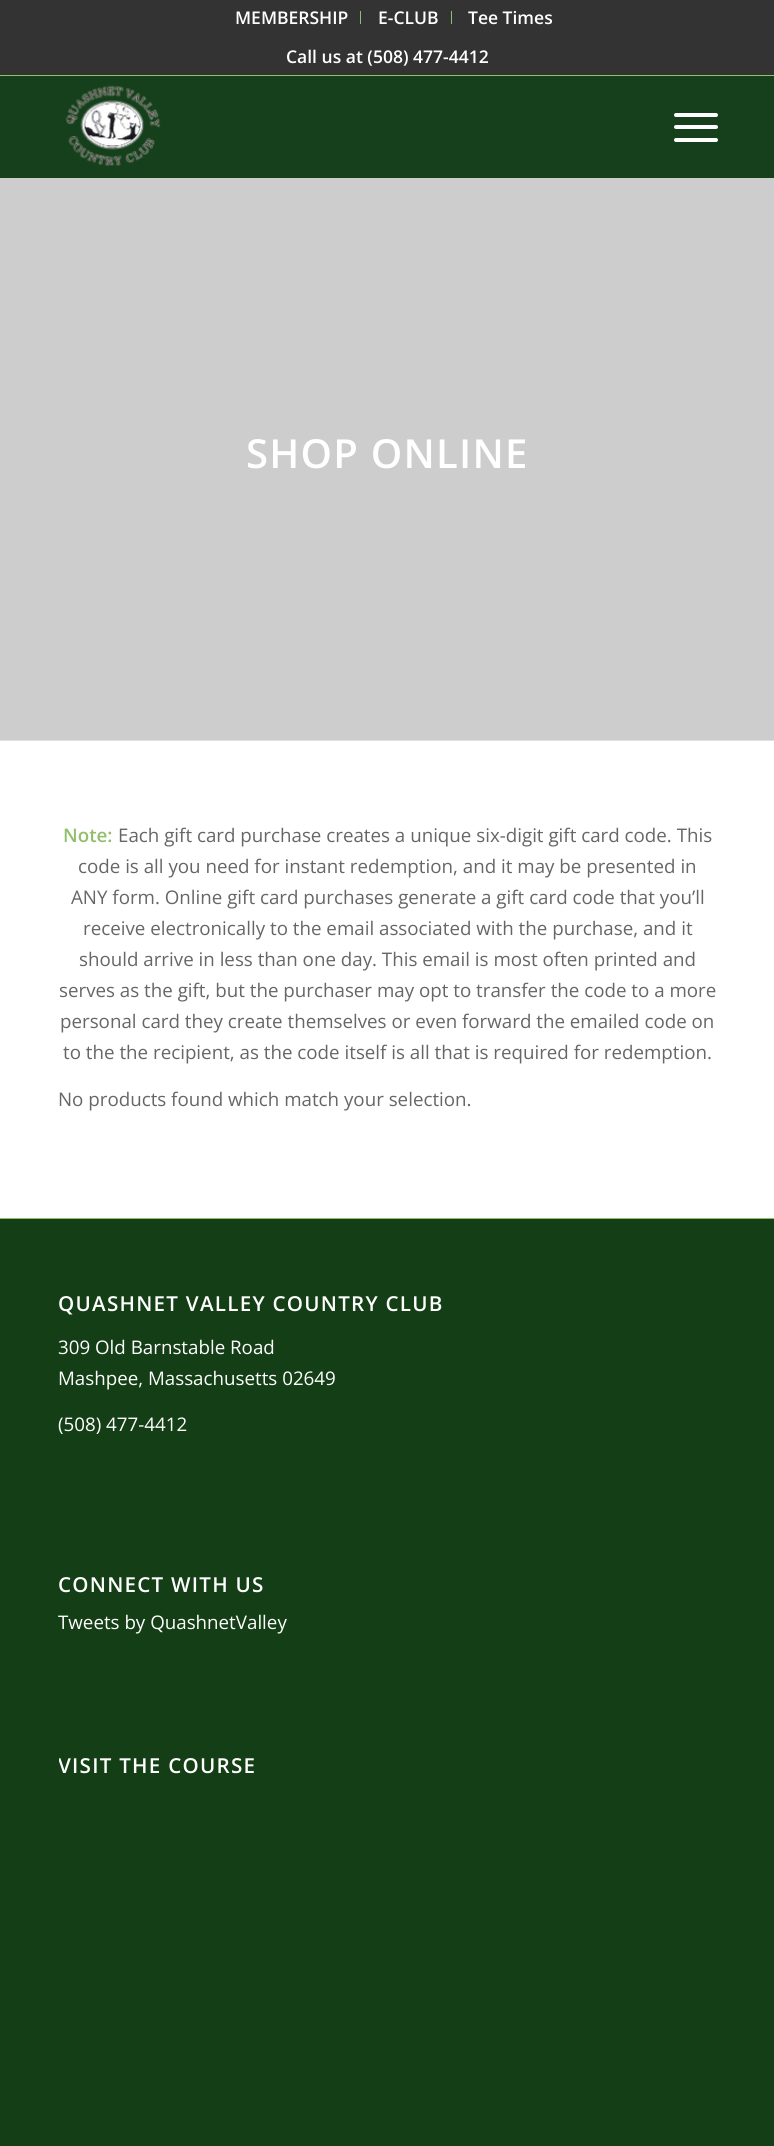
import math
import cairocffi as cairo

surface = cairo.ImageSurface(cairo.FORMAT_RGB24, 774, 2146)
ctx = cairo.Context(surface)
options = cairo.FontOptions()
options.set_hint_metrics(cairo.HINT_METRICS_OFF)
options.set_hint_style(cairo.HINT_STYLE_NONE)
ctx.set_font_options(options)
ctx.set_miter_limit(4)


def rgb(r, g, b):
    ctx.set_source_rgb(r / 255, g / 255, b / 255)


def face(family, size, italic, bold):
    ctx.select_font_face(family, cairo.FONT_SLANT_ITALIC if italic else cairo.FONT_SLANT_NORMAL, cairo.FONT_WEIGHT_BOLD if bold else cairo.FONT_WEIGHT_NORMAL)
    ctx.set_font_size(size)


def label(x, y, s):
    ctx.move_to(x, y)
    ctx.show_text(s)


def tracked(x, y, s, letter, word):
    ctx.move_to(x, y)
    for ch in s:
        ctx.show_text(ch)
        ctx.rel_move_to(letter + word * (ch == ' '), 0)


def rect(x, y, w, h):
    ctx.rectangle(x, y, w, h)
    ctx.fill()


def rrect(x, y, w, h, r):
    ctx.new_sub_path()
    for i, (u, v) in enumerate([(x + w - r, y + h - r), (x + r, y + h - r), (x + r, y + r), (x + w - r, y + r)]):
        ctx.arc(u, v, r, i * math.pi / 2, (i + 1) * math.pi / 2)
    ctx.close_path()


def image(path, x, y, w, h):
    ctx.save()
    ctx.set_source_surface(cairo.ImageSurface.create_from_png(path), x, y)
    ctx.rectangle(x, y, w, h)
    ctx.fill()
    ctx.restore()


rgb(20, 62, 21)
ctx.paint()
rgb(51, 51, 51)
rect(0, 0, 774, 75)
rgb(146, 191, 107)
rect(0, 75, 774, 1)
rect(360, 11, 1, 13)
face('Open Sans SemiBold', 17.5, 0, 0)
rgb(255, 255, 255)
label(235, 24, 'MEMBERSHIP')
rgb(146, 191, 107)
rect(451, 11, 1, 13)
rgb(255, 255, 255)
label(378, 24, 'E-CLUB')
label(468, 24, 'Tee Times')
label(286, 63, 'Call us at (508) 477-4412')
rgb(21, 64, 27)
rect(0, 76, 774, 102)
image('image0.png', 65, 85, 96, 81)
rgb(255, 255, 255)
rrect(674, 125, 44, 4, 2)
ctx.fill()
rrect(674, 113, 44, 4, 2)
ctx.fill()
rrect(674, 138, 44, 4, 2)
ctx.fill()
rgb(205, 205, 205)
rect(0, 178, 774, 562)
face('Open Sans SemiBold', 40, 0, 0)
rgb(255, 255, 255)
tracked(246, 468, 'SHOP ONLINE', 1.25, 0)
rect(0, 741, 774, 477)
rgb(225, 225, 225)
rect(0, 740, 774, 1)
face('Open Sans SemiBold', 18.75, 0, 0)
rgb(146, 191, 107)
label(63, 842, 'Note:')
face('Open Sans', 18.75, 0, 0)
rgb(102, 102, 102)
label(118, 842, 'Each gift card purchase creates a unique six-digit gift card code. This')
label(78, 873, 'code is all you need for instant redemption, and it may be presented in')
label(71, 904, 'ANY form. Online gift card purchases generate a gift card code that you’ll')
label(83, 935, 'receive electronically to the email associated with the purchase, and it')
label(79, 966, 'should arrive in less than one day. This email is most often printed and')
label(59, 997, 'serves as the gift, but the purchaser may opt to transfer the code to a more')
label(60, 1028, 'personal card they create themselves or even forward the emailed code on')
label(63, 1059, 'to the the recipient, as the code itself is all that is required for redemption.')
label(58, 1106, 'No products found which match your selection.')
rgb(146, 191, 107)
rect(0, 1218, 774, 1)
face('Open Sans SemiBold', 20.6, 0, 0)
rgb(255, 255, 255)
tracked(58, 1311, 'QUASHNET VALLEY COUNTRY CLUB', 1.25, 0)
face('Open Sans', 18.75, 0, 0)
label(58, 1354, '309 Old Barnstable Road')
label(58, 1385, 'Mashpee, Massachusetts 02649')
label(58, 1431, '(508) 477-4412')
face('Open Sans SemiBold', 20.6, 0, 0)
tracked(58, 1592, 'CONNECT WITH US', 1.25, 0)
face('Open Sans', 18.75, 0, 0)
label(58, 1629, 'Tweets by QuashnetValley')
ctx.save()
ctx.rectangle(59, 1738, 659, 371)
ctx.clip()
face('Open Sans SemiBold', 20.6, 0, 0)
tracked(58, 1773, 'VISIT THE COURSE', 1.25, 0)
ctx.restore()
surface.write_to_png('render.png')
